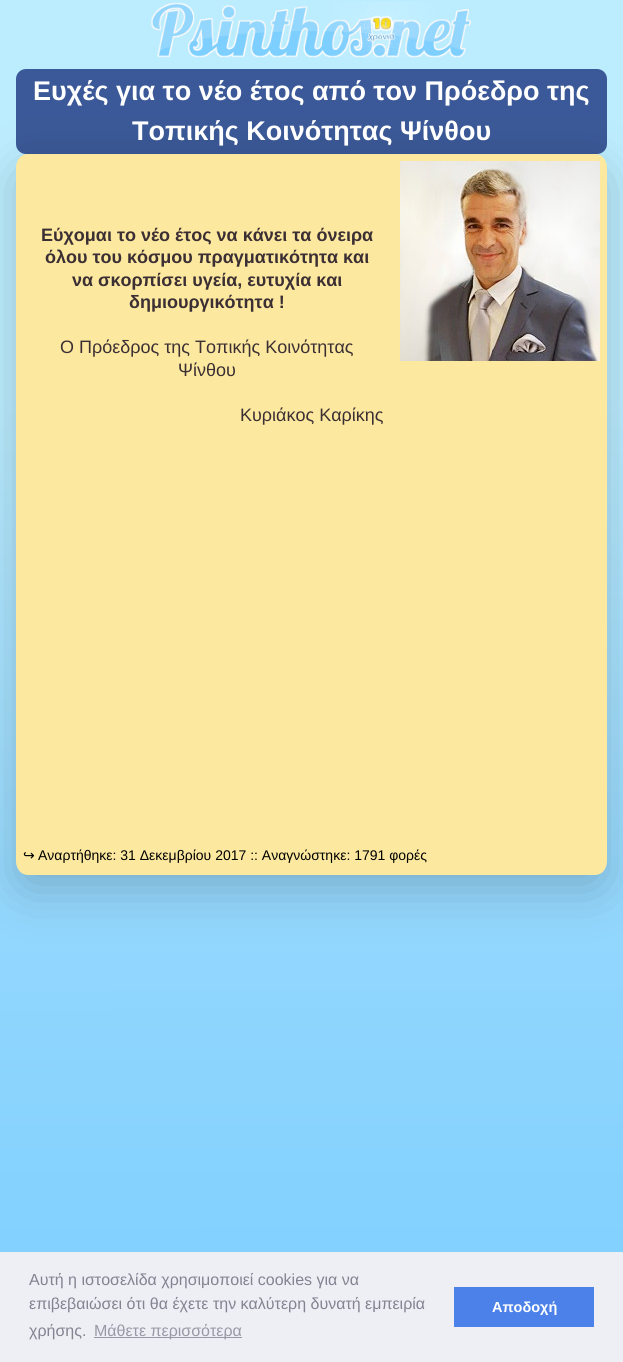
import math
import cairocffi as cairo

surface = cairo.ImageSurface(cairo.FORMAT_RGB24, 623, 1362)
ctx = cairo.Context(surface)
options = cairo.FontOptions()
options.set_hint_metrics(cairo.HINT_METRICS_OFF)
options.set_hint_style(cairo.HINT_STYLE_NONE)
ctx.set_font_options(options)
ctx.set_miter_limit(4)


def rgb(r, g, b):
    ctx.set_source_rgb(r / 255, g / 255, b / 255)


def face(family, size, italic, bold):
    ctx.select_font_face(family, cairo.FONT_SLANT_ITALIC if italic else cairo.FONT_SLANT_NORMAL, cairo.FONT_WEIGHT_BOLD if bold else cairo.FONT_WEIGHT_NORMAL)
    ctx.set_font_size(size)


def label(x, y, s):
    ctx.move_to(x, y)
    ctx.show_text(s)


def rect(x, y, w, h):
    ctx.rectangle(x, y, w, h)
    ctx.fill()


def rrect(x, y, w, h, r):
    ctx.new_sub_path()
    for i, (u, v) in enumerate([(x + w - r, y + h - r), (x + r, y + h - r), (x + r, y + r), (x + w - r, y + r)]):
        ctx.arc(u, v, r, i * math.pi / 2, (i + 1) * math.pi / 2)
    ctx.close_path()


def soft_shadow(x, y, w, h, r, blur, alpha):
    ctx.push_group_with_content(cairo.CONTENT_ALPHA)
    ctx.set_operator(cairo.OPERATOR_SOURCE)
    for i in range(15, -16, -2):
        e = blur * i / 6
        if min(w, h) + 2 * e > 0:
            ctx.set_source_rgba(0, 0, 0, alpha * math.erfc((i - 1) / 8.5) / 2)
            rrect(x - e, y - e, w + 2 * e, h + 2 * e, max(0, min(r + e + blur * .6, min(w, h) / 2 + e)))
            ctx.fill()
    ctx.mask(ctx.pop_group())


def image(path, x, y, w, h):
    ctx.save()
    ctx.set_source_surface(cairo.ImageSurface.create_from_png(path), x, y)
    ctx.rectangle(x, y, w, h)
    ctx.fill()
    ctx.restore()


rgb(255, 255, 255)
ctx.paint()
gradient = cairo.LinearGradient(311, 0, 312, 1362)
gradient.add_color_stop_rgba(0.29, 0.737, 0.929, 1, 1)
gradient.add_color_stop_rgba(0.68, 0.576, 0.843, 0.996, 1)
gradient.add_color_stop_rgba(1, 0.486, 0.812, 1, 1)
ctx.set_source(gradient)
rect(0, 0, 623, 1252)
image('image0.png', 151, 2, 320, 56)
rgb(59, 89, 152)
rrect(16, 69, 591, 85, 10)
ctx.fill()
rgb(0, 0, 0)
soft_shadow(16, 169, 591, 721, 12, 25, 0.2)
face('Liberation Sans', 27, 0, 1)
rgb(255, 255, 255)
label(33, 100, 'Ευχές για το νέο έτος από τον Πρόεδρο της')
label(132, 140, 'Τοπικής Κοινότητας Ψίνθου')
rgb(252, 233, 159)
ctx.new_path()
ctx.move_to(28, 154)
ctx.line_to(595, 154)
ctx.curve_to(602, 154, 607, 160, 607, 168)
ctx.line_to(607, 861)
ctx.curve_to(607, 869, 602, 875, 595, 875)
ctx.line_to(28, 875)
ctx.curve_to(21, 875, 16, 869, 16, 861)
ctx.line_to(16, 168)
ctx.curve_to(16, 160, 21, 154, 28, 154)
ctx.close_path()
ctx.fill()
face('Liberation Sans', 18, 0, 1)
rgb(60, 47, 52)
label(41, 241, 'Εύχομαι το νέο έτος να κάνει τα όνειρα')
label(45, 263, 'όλου του κόσμου πραγματικότητα και')
label(72, 286, 'να σκορπίσει υγεία, ευτυχία και')
label(129, 308, 'δημιουργικότητα !')
face('Liberation Sans', 18, 0, 0)
label(60, 353, 'Ο Πρόεδρος της Τοπικής Κοινότητας')
label(178, 376, 'Ψίνθου')
label(240, 421, 'Κυριάκος Καρίκης')
image('image1.png', 400, 161, 200, 200)
face('DejaVu Sans', 14, 0, 0)
rgb(0, 0, 0)
label(23, 860, '↪')
face('Liberation Sans', 14, 0, 0)
label(38, 860, 'Αναρτήθηκε: 31 Δεκεμβρίου 2017 :: Αναγνώστηκε: 1791 φορές')
rgb(237, 239, 245)
rect(0, 1252, 623, 110)
face('Liberation Sans', 16, 0, 0)
rgb(131, 131, 145)
label(29, 1285, 'Αυτή η ιστοσελίδα χρησιμοποιεί cookies για να')
label(29, 1309, 'επιβεβαιώσει ότι θα έχετε την καλύτερη δυνατή εμπειρία')
label(29, 1336, 'χρήσης.')
rgb(152, 153, 165)
rect(94, 1337, 148, 1)
label(94, 1336, 'Μάθετε περισσότερα')
rgb(75, 129, 232)
rect(454, 1287, 140, 40)
face('Liberation Sans', 14.5, 0, 1)
rgb(255, 255, 255)
label(492, 1312, 'Αποδοχή')
surface.write_to_png('render.png')
